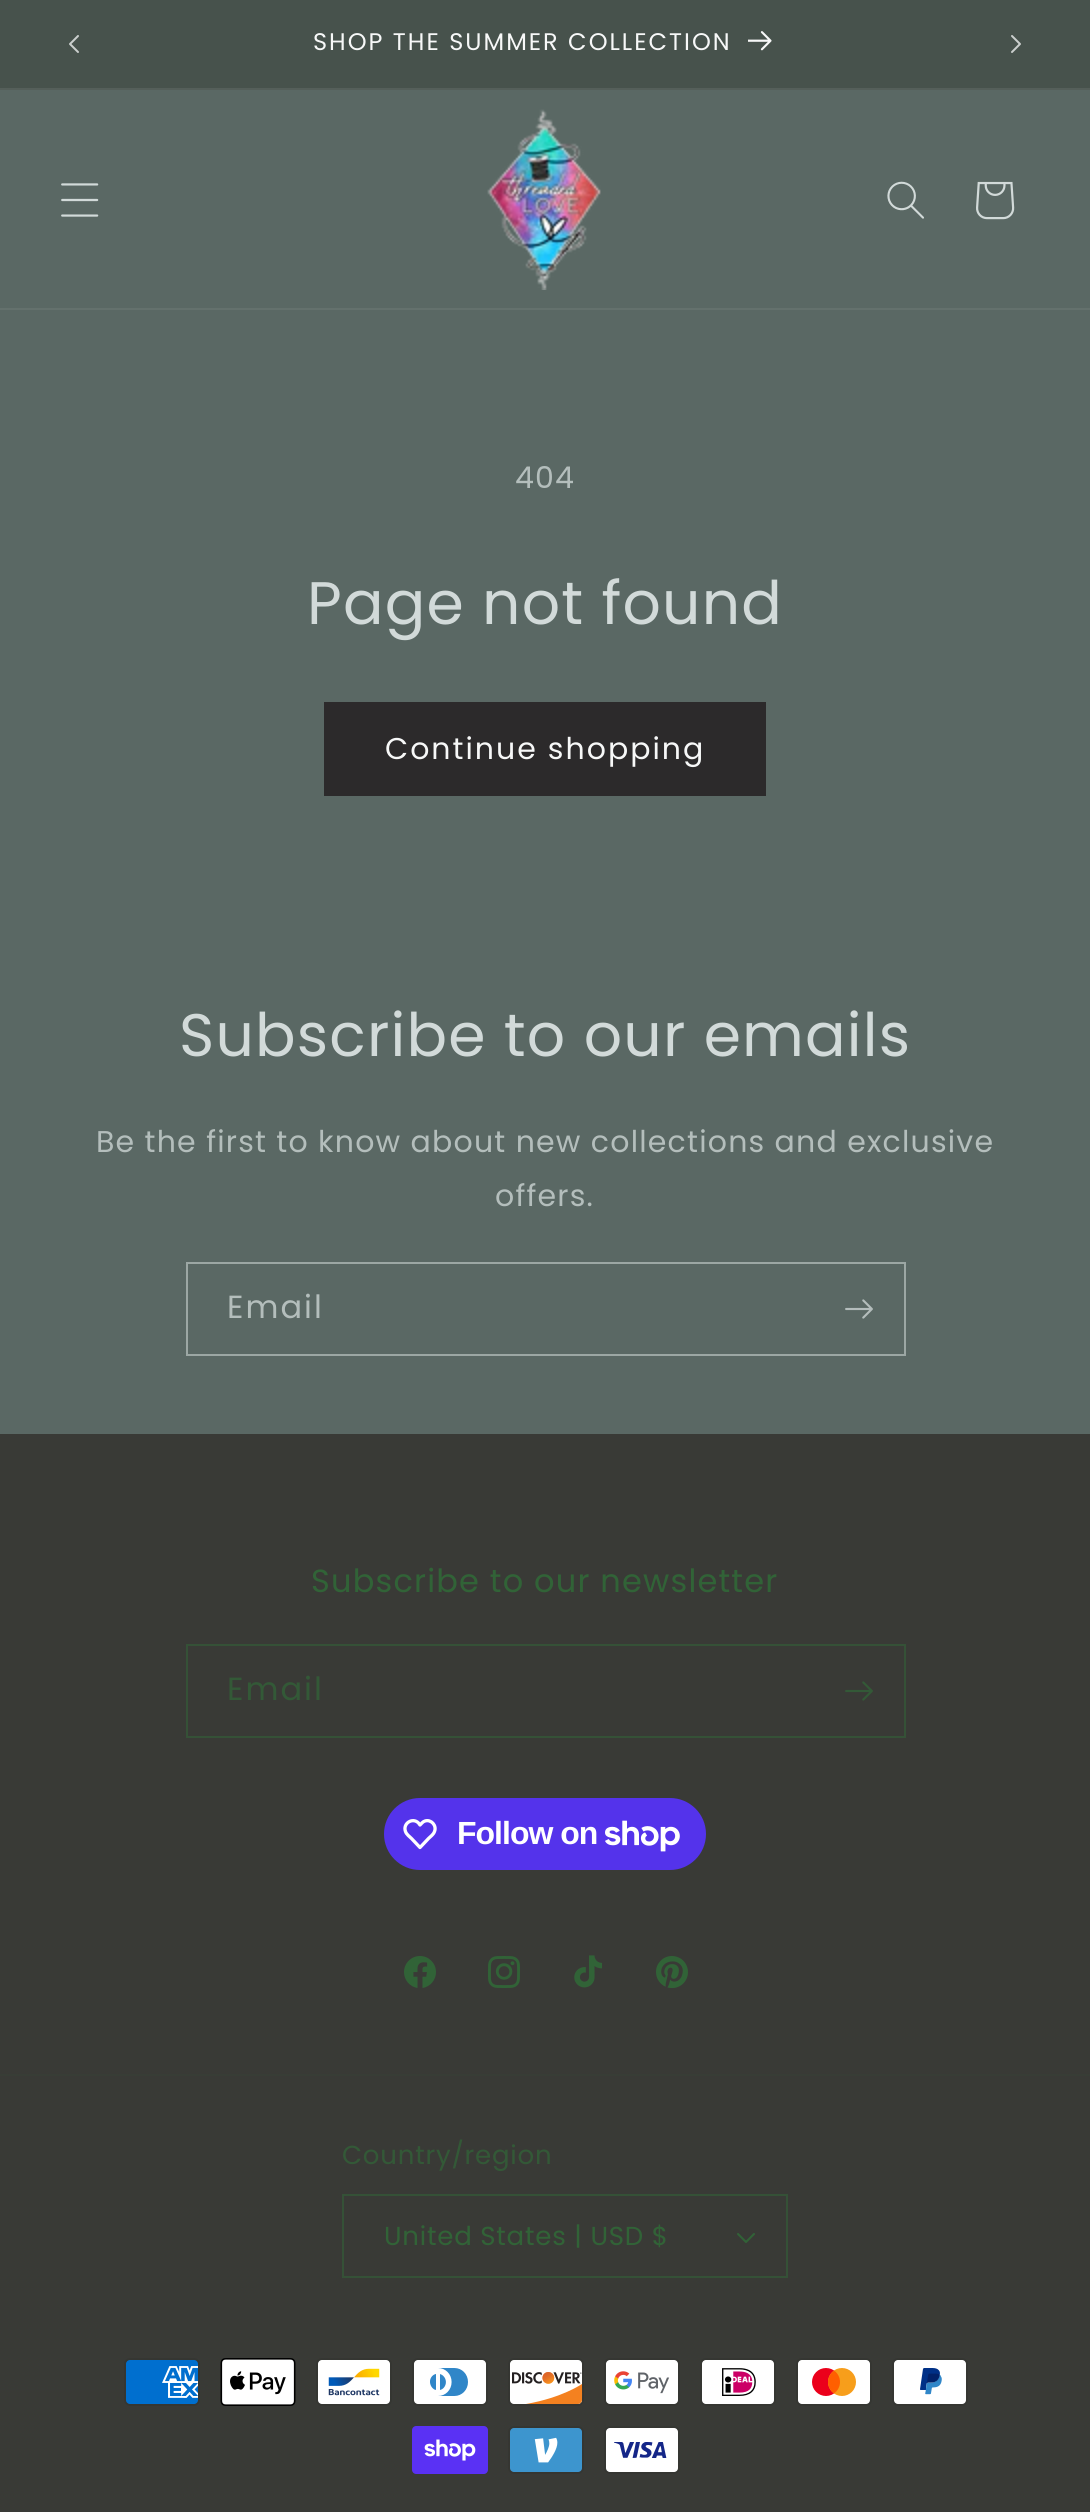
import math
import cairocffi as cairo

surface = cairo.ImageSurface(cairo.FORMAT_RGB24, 1090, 2512)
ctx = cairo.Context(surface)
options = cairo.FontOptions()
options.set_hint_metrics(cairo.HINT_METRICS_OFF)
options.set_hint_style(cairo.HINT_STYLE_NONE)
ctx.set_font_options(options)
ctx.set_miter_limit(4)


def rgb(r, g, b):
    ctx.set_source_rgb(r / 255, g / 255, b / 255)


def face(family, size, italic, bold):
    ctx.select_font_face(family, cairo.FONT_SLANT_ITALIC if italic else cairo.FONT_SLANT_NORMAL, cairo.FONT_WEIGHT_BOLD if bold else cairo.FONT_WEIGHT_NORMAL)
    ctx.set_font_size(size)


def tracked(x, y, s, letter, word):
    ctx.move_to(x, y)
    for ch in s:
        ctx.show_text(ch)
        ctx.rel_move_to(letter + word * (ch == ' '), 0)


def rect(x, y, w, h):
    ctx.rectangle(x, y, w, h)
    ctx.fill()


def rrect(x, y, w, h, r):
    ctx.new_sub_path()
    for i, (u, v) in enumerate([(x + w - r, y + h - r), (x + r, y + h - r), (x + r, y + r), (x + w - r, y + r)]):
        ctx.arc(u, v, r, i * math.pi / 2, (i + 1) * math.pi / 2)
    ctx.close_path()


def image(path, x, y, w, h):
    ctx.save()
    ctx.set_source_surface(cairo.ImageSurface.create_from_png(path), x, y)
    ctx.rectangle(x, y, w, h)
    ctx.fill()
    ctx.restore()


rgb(90, 104, 100)
ctx.paint()
rgb(71, 82, 76)
rect(0, 0, 1090, 88)
rgb(85, 95, 90)
rect(0, 88, 1090, 2)
image('image0.png', 69, 35, 10, 18)
face('Poppins', 24, 0, 0)
rgb(247, 248, 248)
tracked(313, 50, 'SHOP THE SUMMER COLLECTION', 2, 0)
image('image1.png', 748, 31, 24, 20)
image('image2.png', 1011, 35, 10, 18)
rgb(100, 113, 109)
rect(0, 308, 1090, 2)
image('image3.png', 61, 183, 38, 34)
image('image4.png', 487, 109, 114, 181)
image('image5.png', 887, 181, 37, 38)
image('image6.png', 976, 181, 39, 39)
face('Poppins', 30, 0, 0)
rgb(180, 190, 188)
tracked(515, 488, '404', 1.2, 0)
face('Poppins', 60, 0, 0)
rgb(210, 218, 217)
tracked(307, 624, 'Page not found', 1.2, 0)
rgb(44, 42, 43)
rect(324, 702, 442, 94)
face('Poppins', 30, 0, 0)
rgb(247, 248, 248)
tracked(385, 759, 'Continue shopping', 2, 0)
face('Poppins', 60, 0, 0)
rgb(210, 218, 217)
tracked(179, 1056, 'Subscribe to our emails', 1.2, 0)
face('Poppins', 30, 0, 0)
rgb(180, 190, 188)
tracked(96, 1152, 'Be the first to know about new collections and exclusive', 1.2, 0)
tracked(495, 1206, 'offers.', 1.2, 0)
ctx.rectangle(187, 1263, 718, 92)
rgb(156, 167, 164)
ctx.stroke()
face('Poppins', 32, 0, 0)
rgb(180, 190, 188)
tracked(227, 1318, 'Email', 2, 0)
image('image7.png', 845, 1299, 28, 20)
rgb(57, 58, 54)
rect(0, 1434, 1090, 1078)
rgb(49, 99, 55)
tracked(311, 1592, 'Subscribe to our newsletter', 1.2, 0)
ctx.rectangle(187, 1645, 718, 92)
rgb(53, 81, 55)
ctx.stroke()
rgb(51, 89, 55)
tracked(227, 1700, 'Email', 2, 0)
image('image8.png', 845, 1681, 28, 20)
rgb(84, 51, 235)
rrect(384, 1798, 322, 72, 36)
ctx.fill()
ctx.new_path()
ctx.move_to(418.5, 1823)
ctx.line_to(420, 1825)
ctx.curve_to(421.5, 1823.5, 423, 1821.5, 425, 1821)
ctx.curve_to(431, 1819, 437, 1825.5, 434.5, 1831.5)
ctx.curve_to(433.5, 1834.5, 430.5, 1836.5, 428.5, 1838.5)
ctx.line_to(420, 1847.5)
ctx.line_to(411.5, 1838.5)
ctx.curve_to(409.5, 1836.5, 406.5, 1834.5, 405.5, 1831.5)
ctx.curve_to(402.5, 1823.5, 412.5, 1817, 418.5, 1823)
ctx.close_path()
rgb(255, 255, 255)
ctx.set_line_width(3.3)
ctx.set_line_join(cairo.LINE_JOIN_ROUND)
ctx.stroke()
face('Liberation Sans', 32, 0, 1)
tracked(457, 1844, 'Follow on', -1, 0)
image('image9.png', 605, 1820, 75, 32)
image('image10.png', 404, 1956, 32, 32)
image('image11.png', 488, 1956, 32, 32)
image('image12.png', 574, 1955, 28, 33)
image('image13.png', 656, 1956, 32, 32)
rgb(56, 61, 54)
rect(0, 2074, 1090, 2)
face('Poppins', 26, 0, 0)
rgb(51, 89, 55)
tracked(342, 2164, 'Country/region', 0.8, 0)
image('image14.png', 737, 2233, 18, 10)
ctx.rectangle(343, 2195, 444, 82)
rgb(53, 81, 55)
ctx.set_line_width(2)
ctx.set_line_join(cairo.LINE_JOIN_MITER)
ctx.stroke()
rgb(49, 99, 55)
tracked(384, 2245, 'United States | USD $', 0.8, 0)
image('image15.png', 124, 2358, 76, 48)
image('image16.png', 220, 2358, 76, 48)
image('image17.png', 316, 2358, 76, 48)
image('image18.png', 412, 2358, 76, 48)
image('image19.png', 508, 2358, 76, 48)
image('image20.png', 604, 2358, 76, 48)
image('image21.png', 700, 2358, 76, 48)
image('image22.png', 796, 2358, 76, 48)
image('image23.png', 892, 2358, 76, 48)
image('image24.png', 412, 2426, 76, 48)
image('image25.png', 508, 2426, 76, 48)
image('image26.png', 604, 2426, 76, 48)
surface.write_to_png('render.png')
